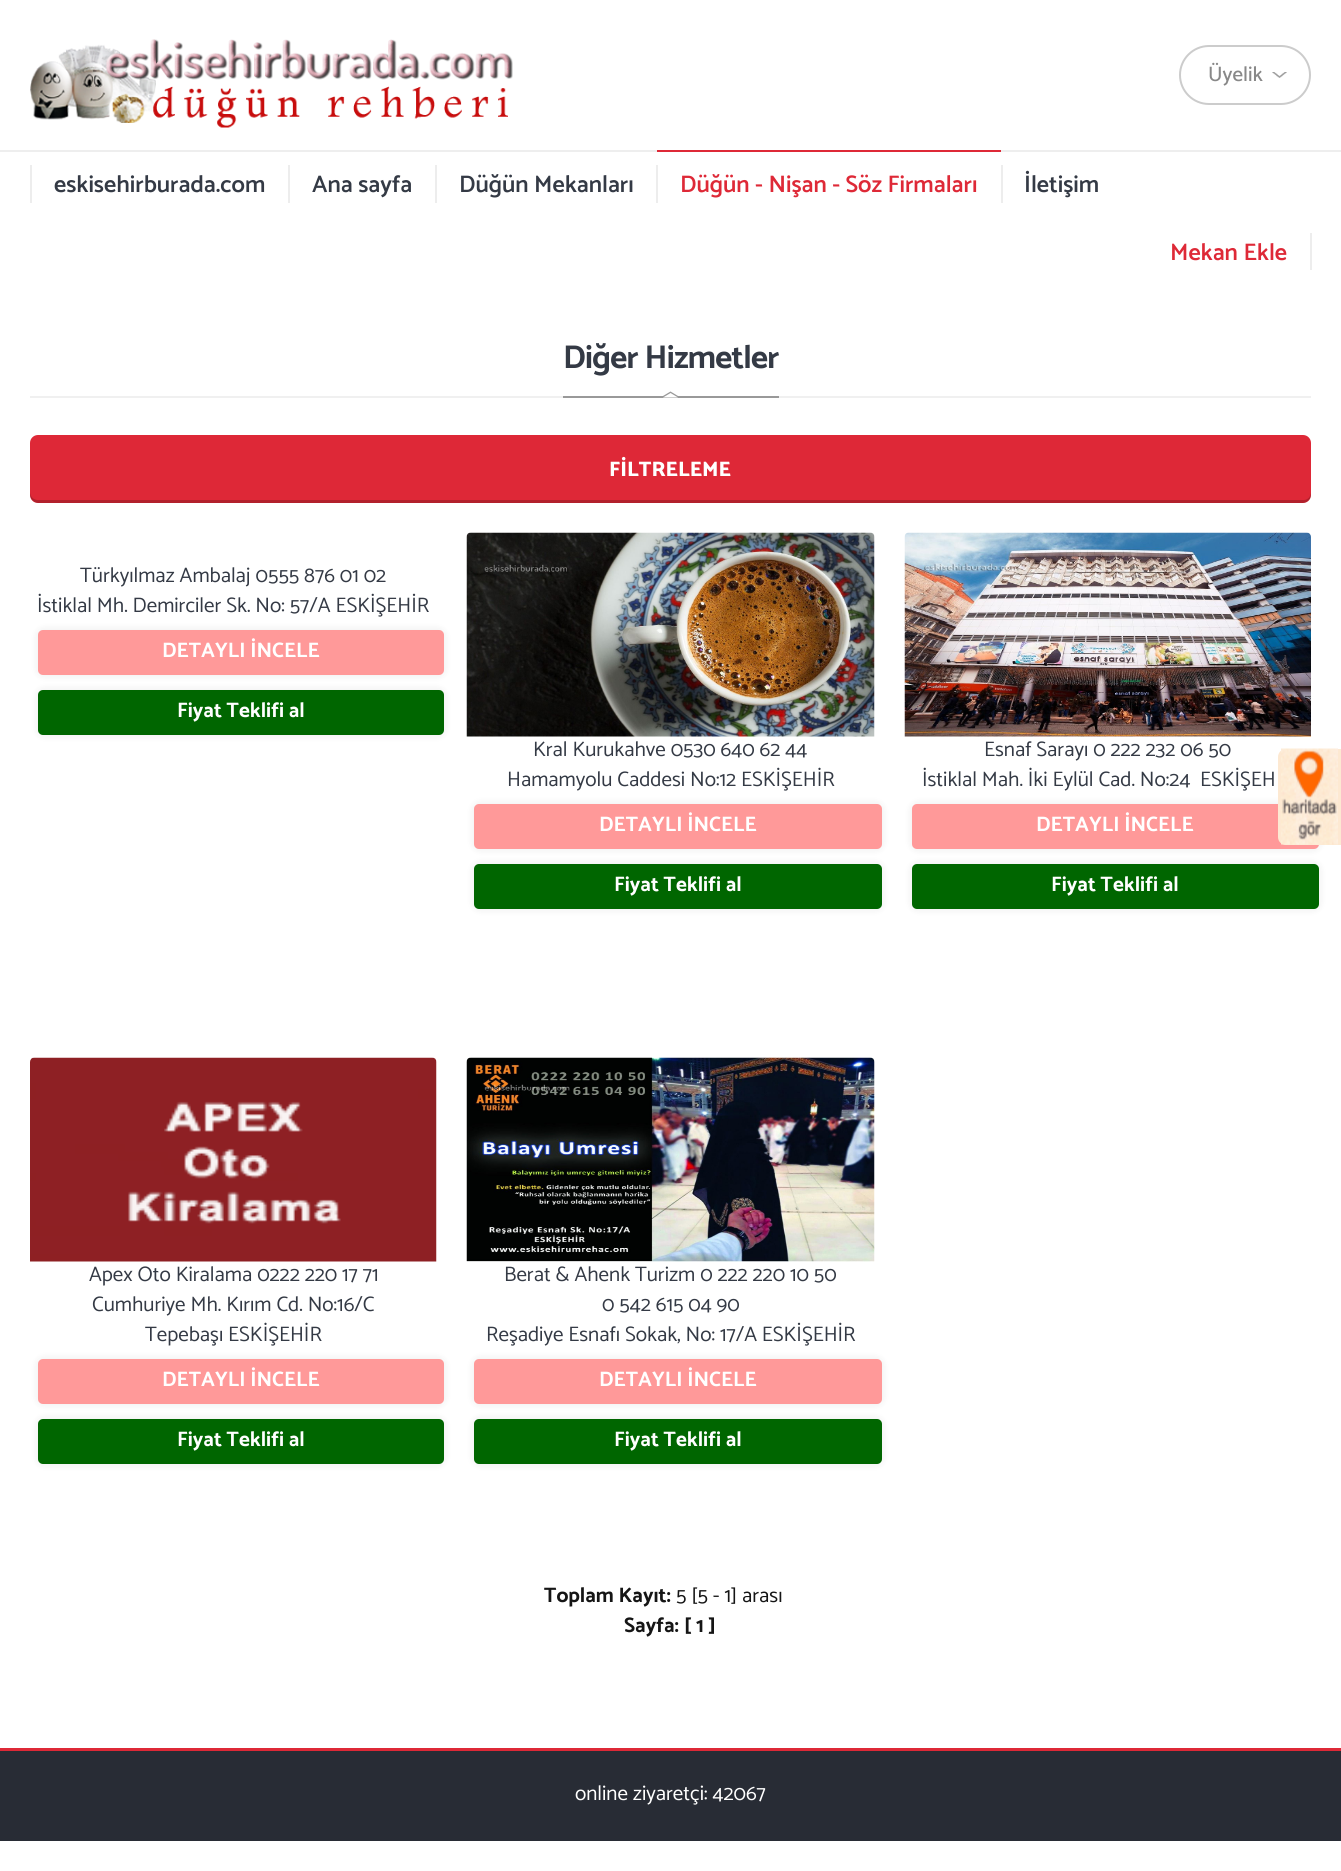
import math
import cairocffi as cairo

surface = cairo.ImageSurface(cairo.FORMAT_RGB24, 1341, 1871)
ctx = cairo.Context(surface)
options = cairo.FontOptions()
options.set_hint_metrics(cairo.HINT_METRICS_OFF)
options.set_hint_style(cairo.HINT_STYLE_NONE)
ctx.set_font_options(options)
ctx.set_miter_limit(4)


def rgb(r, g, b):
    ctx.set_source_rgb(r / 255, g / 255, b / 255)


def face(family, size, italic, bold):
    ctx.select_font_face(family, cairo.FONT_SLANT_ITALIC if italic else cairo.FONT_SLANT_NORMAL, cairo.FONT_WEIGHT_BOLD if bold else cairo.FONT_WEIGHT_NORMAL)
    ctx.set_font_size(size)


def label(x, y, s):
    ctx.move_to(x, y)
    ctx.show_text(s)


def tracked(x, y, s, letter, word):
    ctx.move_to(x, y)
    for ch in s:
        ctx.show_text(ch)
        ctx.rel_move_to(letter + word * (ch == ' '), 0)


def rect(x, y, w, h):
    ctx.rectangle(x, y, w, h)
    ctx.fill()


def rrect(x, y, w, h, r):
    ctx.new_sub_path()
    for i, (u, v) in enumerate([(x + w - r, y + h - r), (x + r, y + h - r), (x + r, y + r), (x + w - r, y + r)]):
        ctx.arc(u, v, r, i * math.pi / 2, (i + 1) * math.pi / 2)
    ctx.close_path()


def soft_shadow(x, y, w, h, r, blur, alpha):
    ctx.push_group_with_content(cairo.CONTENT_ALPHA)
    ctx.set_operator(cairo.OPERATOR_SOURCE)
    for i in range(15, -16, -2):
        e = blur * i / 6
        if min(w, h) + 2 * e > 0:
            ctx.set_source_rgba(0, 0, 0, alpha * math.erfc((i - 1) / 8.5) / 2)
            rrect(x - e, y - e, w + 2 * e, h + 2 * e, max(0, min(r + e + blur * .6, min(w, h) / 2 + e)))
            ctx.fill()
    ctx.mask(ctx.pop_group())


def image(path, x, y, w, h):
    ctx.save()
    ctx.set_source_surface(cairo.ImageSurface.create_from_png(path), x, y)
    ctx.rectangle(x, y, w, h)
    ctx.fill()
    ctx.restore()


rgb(255, 255, 255)
ctx.paint()
image('image0.png', 30, 39, 483, 89)
image('image1.png', 1272, 72, 15, 6)
rrect(1180, 46, 130, 58, 29)
rgb(204, 204, 204)
ctx.stroke()
face('Catamaran Medium', 21, 0, 0)
rgb(136, 136, 136)
label(1208, 81, 'Üyelik')
rgb(238, 238, 238)
rect(0, 150, 1341, 2)
rgb(237, 237, 237)
rect(30, 165, 2, 38)
face('Catamaran SemiBold', 24, 0, 0)
rgb(52, 58, 69)
label(54, 192, 'eskisehirburada.com')
rgb(237, 237, 237)
rect(288, 165, 2, 38)
rgb(52, 58, 69)
label(312, 192, 'Ana sayfa')
rgb(237, 237, 237)
rect(435, 165, 2, 38)
rgb(52, 58, 69)
label(459, 192, 'Düğün Mekanları')
rgb(237, 237, 237)
rect(656, 165, 2, 38)
rgb(222, 41, 55)
rect(657, 150, 344, 2)
label(680, 192, 'Düğün - Nişan - Söz Firmaları')
rgb(237, 237, 237)
rect(1001, 165, 2, 38)
rgb(52, 58, 69)
label(1024, 192, 'İletişim')
rgb(222, 41, 55)
label(1170, 260, 'Mekan Ekle')
rgb(237, 237, 237)
rect(1310, 233, 2, 37)
rgb(240, 240, 240)
rect(30, 396, 1281, 2)
rgb(153, 153, 153)
rect(563, 396, 216, 2)
face('Catamaran', 33, 0, 1)
rgb(52, 58, 69)
tracked(563, 368, 'Diğer Hizmetler', -0.75, 0)
rgb(153, 153, 153)
ctx.new_path()
ctx.move_to(678, 396)
ctx.line_to(663, 396)
ctx.line_to(670.5, 391.5)
ctx.close_path()
ctx.fill()
rgb(255, 255, 255)
ctx.new_path()
ctx.move_to(678, 397.5)
ctx.line_to(663, 397.5)
ctx.line_to(670.5, 393)
ctx.close_path()
ctx.fill()
rgb(222, 40, 55)
rrect(30, 435, 1281, 68, 8)
ctx.fill()
ctx.set_source_rgba(0, 0, 0, 0.2)
ctx.new_path()
ctx.move_to(30, 492)
ctx.line_to(30, 495)
ctx.curve_to(30, 499, 34, 503, 38, 503)
ctx.line_to(1303, 503)
ctx.curve_to(1307, 503, 1311, 499, 1311, 495)
ctx.line_to(1311, 492)
ctx.curve_to(1311, 496, 1308, 500, 1304, 500)
ctx.line_to(38, 500)
ctx.curve_to(33, 500, 30, 496, 30, 492)
ctx.close_path()
ctx.fill()
face('Catamaran ExtraBold', 21, 0, 0)
rgb(255, 255, 255)
label(609, 476, 'FİLTRELEME')
face('Catamaran', 21, 0, 0)
rgb(52, 58, 69)
label(80, 582, 'Türkyılmaz Ambalaj 0555 876 01 02')
label(37, 612, 'İstiklal Mh. Demirciler Sk. No: 57/A ESKİŞEHİR')
rgb(0, 0, 0)
soft_shadow(38, 630, 406, 45, 5, 4.5, 0.08)
rgb(255, 153, 153)
rrect(38, 630, 406, 45, 5)
ctx.fill()
face('Catamaran', 21, 0, 1)
rgb(255, 255, 255)
label(162, 657, 'DETAYLI İNCELE')
rgb(0, 0, 0)
soft_shadow(38, 690, 406, 45, 5, 4.5, 0.08)
rgb(0, 102, 0)
rrect(38, 690, 406, 45, 5)
ctx.fill()
rgb(255, 255, 255)
label(177, 717, 'Fiyat Teklifi al')
image('image2.png', 466, 532, 409, 205)
face('Catamaran', 21, 0, 0)
rgb(52, 58, 69)
label(533, 756, 'Kral Kurukahve 0530 640 62 44')
label(507, 786, 'Hamamyolu Caddesi No:12 ESKİŞEHİR')
rgb(0, 0, 0)
soft_shadow(474, 804, 408, 45, 5, 4.5, 0.08)
rgb(255, 153, 153)
rrect(474, 804, 408, 45, 5)
ctx.fill()
face('Catamaran', 21, 0, 1)
rgb(255, 255, 255)
label(599, 831, 'DETAYLI İNCELE')
rgb(0, 0, 0)
soft_shadow(474, 864, 408, 45, 5, 4.5, 0.08)
rgb(0, 102, 0)
rrect(474, 864, 408, 45, 5)
ctx.fill()
rgb(255, 255, 255)
label(614, 891, 'Fiyat Teklifi al')
image('image3.png', 904, 532, 407, 205)
face('Catamaran', 21, 0, 0)
rgb(52, 58, 69)
label(984, 756, 'Esnaf Sarayı 0 222 232 06 50')
label(922, 786, 'İstiklal Mah. İki Eylül Cad. No:24')
label(1200, 786, 'ESKİŞEH')
rgb(0, 0, 0)
soft_shadow(912, 804, 407, 45, 5, 4.5, 0.08)
rgb(255, 153, 153)
rrect(912, 804, 407, 45, 5)
ctx.fill()
face('Catamaran', 21, 0, 1)
rgb(255, 255, 255)
label(1036, 831, 'DETAYLI İNCELE')
rgb(0, 0, 0)
soft_shadow(912, 864, 407, 45, 5, 4.5, 0.08)
rgb(0, 102, 0)
rrect(912, 864, 407, 45, 5)
ctx.fill()
rgb(255, 255, 255)
label(1051, 891, 'Fiyat Teklifi al')
image('image4.png', 30, 1057, 407, 205)
face('Catamaran', 21, 0, 0)
rgb(52, 58, 69)
label(89, 1281, 'Apex Oto Kiralama 0222 220 17 71')
label(92, 1311, 'Cumhuriye Mh. Kırım Cd. No:16/C')
label(145, 1341, 'Tepebaşı ESKİŞEHİR')
rgb(0, 0, 0)
soft_shadow(38, 1359, 406, 45, 5, 4.5, 0.08)
rgb(255, 153, 153)
rrect(38, 1359, 406, 45, 5)
ctx.fill()
face('Catamaran', 21, 0, 1)
rgb(255, 255, 255)
label(162, 1386, 'DETAYLI İNCELE')
rgb(0, 0, 0)
soft_shadow(38, 1419, 406, 45, 5, 4.5, 0.08)
rgb(0, 102, 0)
rrect(38, 1419, 406, 45, 5)
ctx.fill()
rgb(255, 255, 255)
label(177, 1446, 'Fiyat Teklifi al')
image('image5.png', 466, 1057, 409, 205)
face('Catamaran', 21, 0, 0)
rgb(52, 58, 69)
label(504, 1281, 'Berat & Ahenk Turizm 0 222 220 10 50')
label(602, 1311, '0 542 615 04 90')
label(486, 1341, 'Reşadiye Esnafı Sokak, No: 17/A ESKİŞEHİR')
rgb(0, 0, 0)
soft_shadow(474, 1359, 408, 45, 5, 4.5, 0.08)
rgb(255, 153, 153)
rrect(474, 1359, 408, 45, 5)
ctx.fill()
face('Catamaran', 21, 0, 1)
rgb(255, 255, 255)
label(599, 1386, 'DETAYLI İNCELE')
rgb(0, 0, 0)
soft_shadow(474, 1419, 408, 45, 5, 4.5, 0.08)
rgb(0, 102, 0)
rrect(474, 1419, 408, 45, 5)
ctx.fill()
rgb(255, 255, 255)
label(614, 1446, 'Fiyat Teklifi al')
rgb(21, 21, 21)
label(544, 1602, 'Toplam Kayıt:')
face('Catamaran', 21, 0, 0)
label(676, 1602, '5 [5 - 1] arası')
face('Catamaran', 21, 0, 1)
label(624, 1632, 'Sayfa: [ 1 ]')
rgb(253, 233, 210)
ctx.new_path()
ctx.move_to(1286, 749)
ctx.line_to(1341, 749)
ctx.line_to(1341, 845)
ctx.line_to(1286, 845)
ctx.curve_to(1281.5, 845, 1278, 841.5, 1278, 837)
ctx.line_to(1278, 757)
ctx.curve_to(1278, 752.5, 1281.5, 749, 1286, 749)
ctx.close_path()
ctx.fill()
image('image6.png', 1281, 748, 57, 97)
rgb(40, 44, 53)
rect(0, 1751, 1341, 90)
rgb(222, 41, 55)
rect(0, 1748, 1341, 3)
face('Catamaran', 21, 0, 0)
rgb(255, 255, 255)
label(575, 1800, 'online ziyaretçi: 42067')
surface.write_to_png('render.png')
